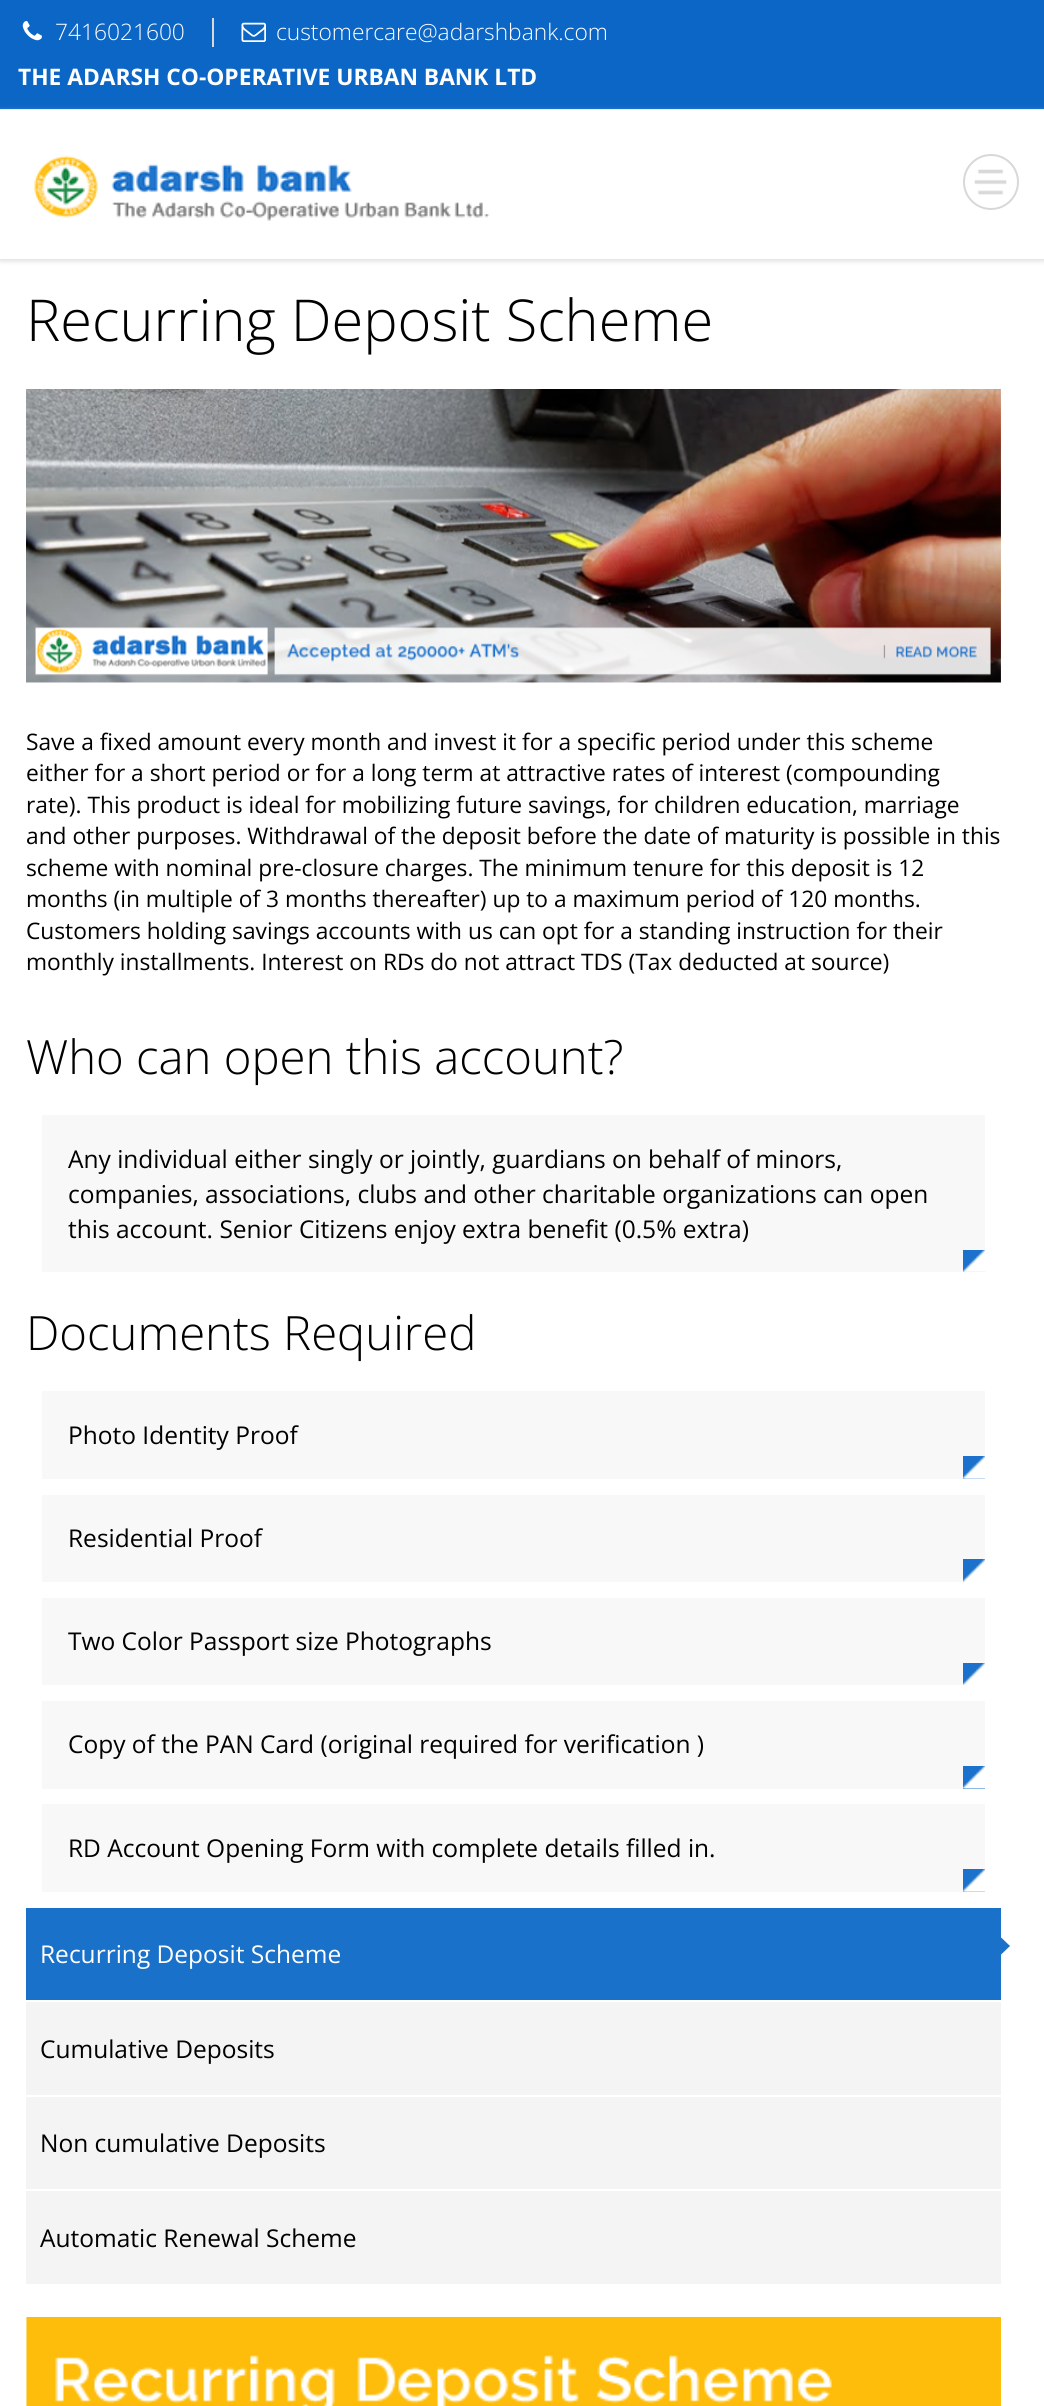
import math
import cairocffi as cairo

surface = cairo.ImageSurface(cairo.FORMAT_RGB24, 1044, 2406)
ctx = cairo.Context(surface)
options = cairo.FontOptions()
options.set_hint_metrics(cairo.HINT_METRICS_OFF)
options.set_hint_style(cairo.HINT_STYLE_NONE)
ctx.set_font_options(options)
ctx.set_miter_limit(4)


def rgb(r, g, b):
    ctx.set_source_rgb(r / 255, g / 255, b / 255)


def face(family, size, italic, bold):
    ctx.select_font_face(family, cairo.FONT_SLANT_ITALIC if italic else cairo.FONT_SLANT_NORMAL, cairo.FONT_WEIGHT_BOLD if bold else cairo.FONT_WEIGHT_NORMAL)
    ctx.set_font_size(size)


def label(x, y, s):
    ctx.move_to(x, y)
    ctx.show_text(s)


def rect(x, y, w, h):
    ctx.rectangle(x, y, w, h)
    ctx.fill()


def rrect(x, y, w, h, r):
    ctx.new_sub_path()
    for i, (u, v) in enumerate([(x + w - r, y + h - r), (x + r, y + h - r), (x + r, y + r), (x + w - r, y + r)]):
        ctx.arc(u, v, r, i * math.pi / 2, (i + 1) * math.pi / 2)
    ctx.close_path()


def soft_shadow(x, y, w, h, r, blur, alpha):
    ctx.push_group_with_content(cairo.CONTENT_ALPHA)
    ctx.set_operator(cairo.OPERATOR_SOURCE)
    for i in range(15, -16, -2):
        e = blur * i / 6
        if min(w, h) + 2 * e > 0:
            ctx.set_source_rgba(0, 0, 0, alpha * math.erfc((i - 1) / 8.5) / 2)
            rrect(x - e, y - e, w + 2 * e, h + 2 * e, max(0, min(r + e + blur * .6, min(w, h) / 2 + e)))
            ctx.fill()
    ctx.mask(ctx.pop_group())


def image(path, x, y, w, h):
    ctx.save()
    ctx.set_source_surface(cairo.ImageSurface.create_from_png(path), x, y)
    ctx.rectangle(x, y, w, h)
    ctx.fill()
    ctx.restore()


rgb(255, 255, 255)
ctx.paint()
rgb(12, 102, 198)
rect(0, 0, 1044, 109)
rgb(238, 238, 238)
rect(0, 109, 1044, 1)
rgb(216, 216, 216)
rect(212, 18, 2, 29)
image('image0.png', 22, 21, 20, 20)
face('Open Sans Light', 22.75, 0, 0)
rgb(255, 255, 255)
label(55, 40, '7416021600')
image('image1.png', 241, 22, 25, 20)
label(276, 40, 'customercare@adarshbank.com')
face('Open Sans', 22.75, 0, 1)
label(18, 85, 'THE ADARSH CO-OPERATIVE URBAN BANK LTD')
rgb(221, 221, 221)
soft_shadow(0, 112, 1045, 149, 0, 2.5, 1)
rgb(255, 255, 255)
rect(0, 110, 1044, 149)
image('image2.png', 34, 155, 456, 66)
image('image3.png', 974, 169, 33, 26)
ctx.arc(991, 182, 27, 0, 2 * math.pi)
rgb(216, 216, 216)
ctx.stroke()
face('Open Sans Light', 57.75, 0, 0)
rgb(0, 0, 0)
label(26, 341, 'Recurring Deposit Scheme')
image('image4.png', 26, 389, 975, 294)
face('Open Sans', 22.75, 0, 0)
label(26, 750, 'Save a fixed amount every month and invest it for a specific period under this scheme')
label(26, 781, 'either for a short period or for a long term at attractive rates of interest (compounding')
label(26, 813, 'rate). This product is ideal for mobilizing future savings, for children education, marriage')
label(26, 844, 'and other purposes. Withdrawal of the deposit before the date of maturity is possible in this')
label(26, 876, 'scheme with nominal pre-closure charges. The minimum tenure for this deposit is 12')
label(26, 907, 'months (in multiple of 3 months thereafter) up to a maximum period of 120 months.')
label(26, 939, 'Customers holding savings accounts with us can opt for a standing instruction for their')
label(26, 970, 'monthly installments. Interest on RDs do not attract TDS (Tax deducted at source)')
face('Open Sans Light', 47.25, 0, 0)
label(26, 1074, 'Who can open this account?')
rgb(248, 248, 248)
rect(42, 1115, 943, 157)
face('Open Sans', 24.5, 0, 0)
rgb(0, 0, 0)
label(68, 1168, 'Any individual either singly or jointly, guardians on behalf of minors,')
label(68, 1203, 'companies, associations, clubs and other charitable organizations can open')
label(68, 1238, 'this account. Senior Citizens enjoy extra benefit (0.5% extra)')
rgb(27, 113, 203)
rect(963, 1250, 22, 22)
image('image5.png', 963, 1250, 22, 22)
face('Open Sans Light', 47.25, 0, 0)
rgb(0, 0, 0)
label(26, 1350, 'Documents Required')
rgb(248, 248, 248)
rect(42, 1391, 943, 88)
face('Open Sans', 24.5, 0, 0)
rgb(0, 0, 0)
label(68, 1444, 'Photo Identity Proof')
rgb(27, 113, 203)
rect(963, 1456, 22, 23)
image('image6.png', 963, 1456, 22, 23)
rgb(248, 248, 248)
rect(42, 1495, 943, 87)
rgb(0, 0, 0)
label(68, 1547, 'Residential Proof')
rgb(27, 113, 203)
rect(963, 1559, 22, 23)
image('image7.png', 963, 1559, 22, 23)
rgb(248, 248, 248)
rect(42, 1598, 943, 87)
rgb(0, 0, 0)
label(68, 1650, 'Two Color Passport size Photographs')
rgb(27, 113, 203)
rect(963, 1663, 22, 22)
image('image8.png', 963, 1663, 22, 22)
rgb(248, 248, 248)
rect(42, 1701, 943, 88)
rgb(0, 0, 0)
label(68, 1753, 'Copy of the PAN Card (original required for verification )')
rgb(27, 113, 203)
rect(963, 1766, 22, 23)
image('image9.png', 963, 1766, 22, 23)
rgb(248, 248, 248)
rect(42, 1804, 943, 88)
rgb(0, 0, 0)
label(68, 1857, 'RD Account Opening Form with complete details filled in.')
rgb(27, 113, 203)
rect(963, 1869, 22, 23)
image('image6.png', 963, 1869, 22, 23)
rgb(25, 113, 202)
rect(26, 1908, 975, 92)
rgb(255, 255, 255)
label(40, 1963, 'Recurring Deposit Scheme')
rgb(25, 113, 202)
ctx.new_path()
ctx.move_to(999, 1956.5)
ctx.line_to(999, 1935.5)
ctx.line_to(1010, 1946)
ctx.close_path()
ctx.fill()
rgb(244, 244, 244)
rect(26, 2002, 975, 93)
rgb(0, 0, 0)
label(40, 2058, 'Cumulative Deposits')
rgb(244, 244, 244)
rect(26, 2097, 975, 92)
rgb(0, 0, 0)
label(40, 2152, 'Non cumulative Deposits')
rgb(244, 244, 244)
rect(26, 2191, 975, 93)
rgb(0, 0, 0)
label(40, 2247, 'Automatic Renewal Scheme')
image('image10.png', 26, 2317, 975, 89)
surface.write_to_png('render.png')
